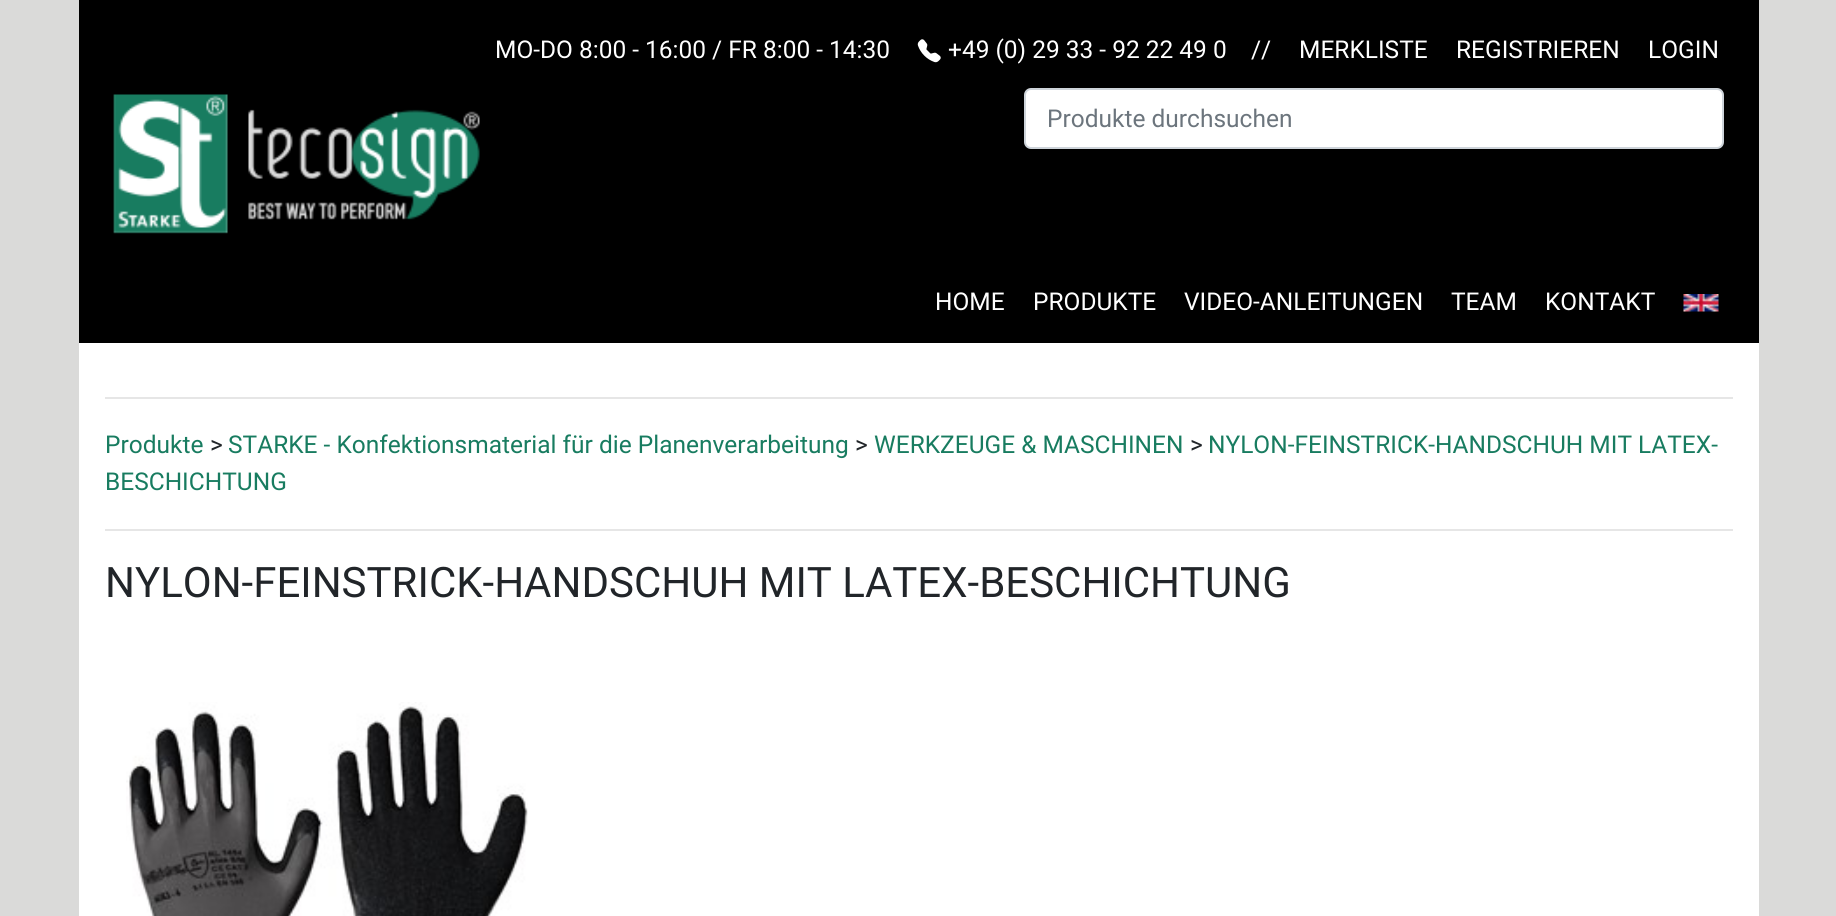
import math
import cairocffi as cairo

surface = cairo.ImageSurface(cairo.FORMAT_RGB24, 1836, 916)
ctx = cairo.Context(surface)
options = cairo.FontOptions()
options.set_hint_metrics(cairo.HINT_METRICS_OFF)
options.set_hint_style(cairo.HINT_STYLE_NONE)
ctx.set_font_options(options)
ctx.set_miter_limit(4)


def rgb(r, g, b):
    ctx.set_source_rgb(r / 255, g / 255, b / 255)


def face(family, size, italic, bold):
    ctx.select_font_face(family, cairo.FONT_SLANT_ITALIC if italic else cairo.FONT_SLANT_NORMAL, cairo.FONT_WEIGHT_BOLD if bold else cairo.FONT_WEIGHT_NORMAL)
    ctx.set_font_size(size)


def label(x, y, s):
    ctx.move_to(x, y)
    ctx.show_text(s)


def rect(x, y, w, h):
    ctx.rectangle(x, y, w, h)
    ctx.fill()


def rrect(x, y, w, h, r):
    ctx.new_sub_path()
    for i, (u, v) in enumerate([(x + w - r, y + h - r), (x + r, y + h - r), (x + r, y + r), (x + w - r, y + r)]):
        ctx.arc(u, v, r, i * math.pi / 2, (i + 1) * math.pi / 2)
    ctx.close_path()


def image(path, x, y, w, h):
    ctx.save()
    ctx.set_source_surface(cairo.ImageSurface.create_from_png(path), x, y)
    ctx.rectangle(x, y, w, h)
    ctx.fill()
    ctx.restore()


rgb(218, 218, 217)
ctx.paint()
rgb(0, 0, 0)
rect(79, 0, 1680, 343)
image('image0.png', 113, 94, 367, 140)
face('Roboto', 24.5, 0, 0)
rgb(255, 255, 255)
label(495, 58, 'MO-DO 8:00 - 16:00 / FR 8:00 - 14:30')
image('image1.png', 917, 39, 24, 24)
label(948, 58, '+49 (0) 29 33 - 92 22 49 0    //')
label(1299, 58, 'MERKLISTE')
label(1456, 58, 'REGISTRIEREN')
label(1648, 58, 'LOGIN')
rrect(1025, 89, 698, 59, 6)
ctx.fill_preserve()
rgb(206, 212, 218)
ctx.stroke()
rgb(108, 117, 125)
label(1047, 127, 'Produkte durchsuchen')
rgb(255, 255, 255)
label(935, 310, 'HOME')
label(1033, 310, 'PRODUKTE')
label(1184, 310, 'VIDEO-ANLEITUNGEN')
label(1451, 310, 'TEAM')
label(1545, 310, 'KONTAKT')
image('image2.png', 1683, 294, 36, 18)
rect(79, 343, 1680, 573)
rgb(230, 230, 230)
rect(105, 397, 1628, 2)
rgb(24, 124, 96)
label(105, 453, 'Produkte')
rgb(33, 37, 41)
label(210, 453, '>')
rgb(24, 124, 96)
label(228, 453, 'STARKE - Konfektionsmaterial für die Planenverarbeitung')
rgb(33, 37, 41)
label(855, 453, '>')
rgb(24, 124, 96)
label(874, 453, 'WERKZEUGE & MASCHINEN')
rgb(33, 37, 41)
label(1190, 453, '>')
rgb(24, 124, 96)
label(1208, 453, 'NYLON-FEINSTRICK-HANDSCHUH MIT LATEX-')
label(105, 490, 'BESCHICHTUNG')
rgb(230, 230, 230)
rect(105, 529, 1628, 2)
face('Roboto', 42, 0, 0)
rgb(33, 37, 41)
label(105, 597, 'NYLON-FEINSTRICK-HANDSCHUH MIT LATEX-BESCHICHTUNG')
image('image3.png', 126, 702, 402, 214)
surface.write_to_png('render.png')
